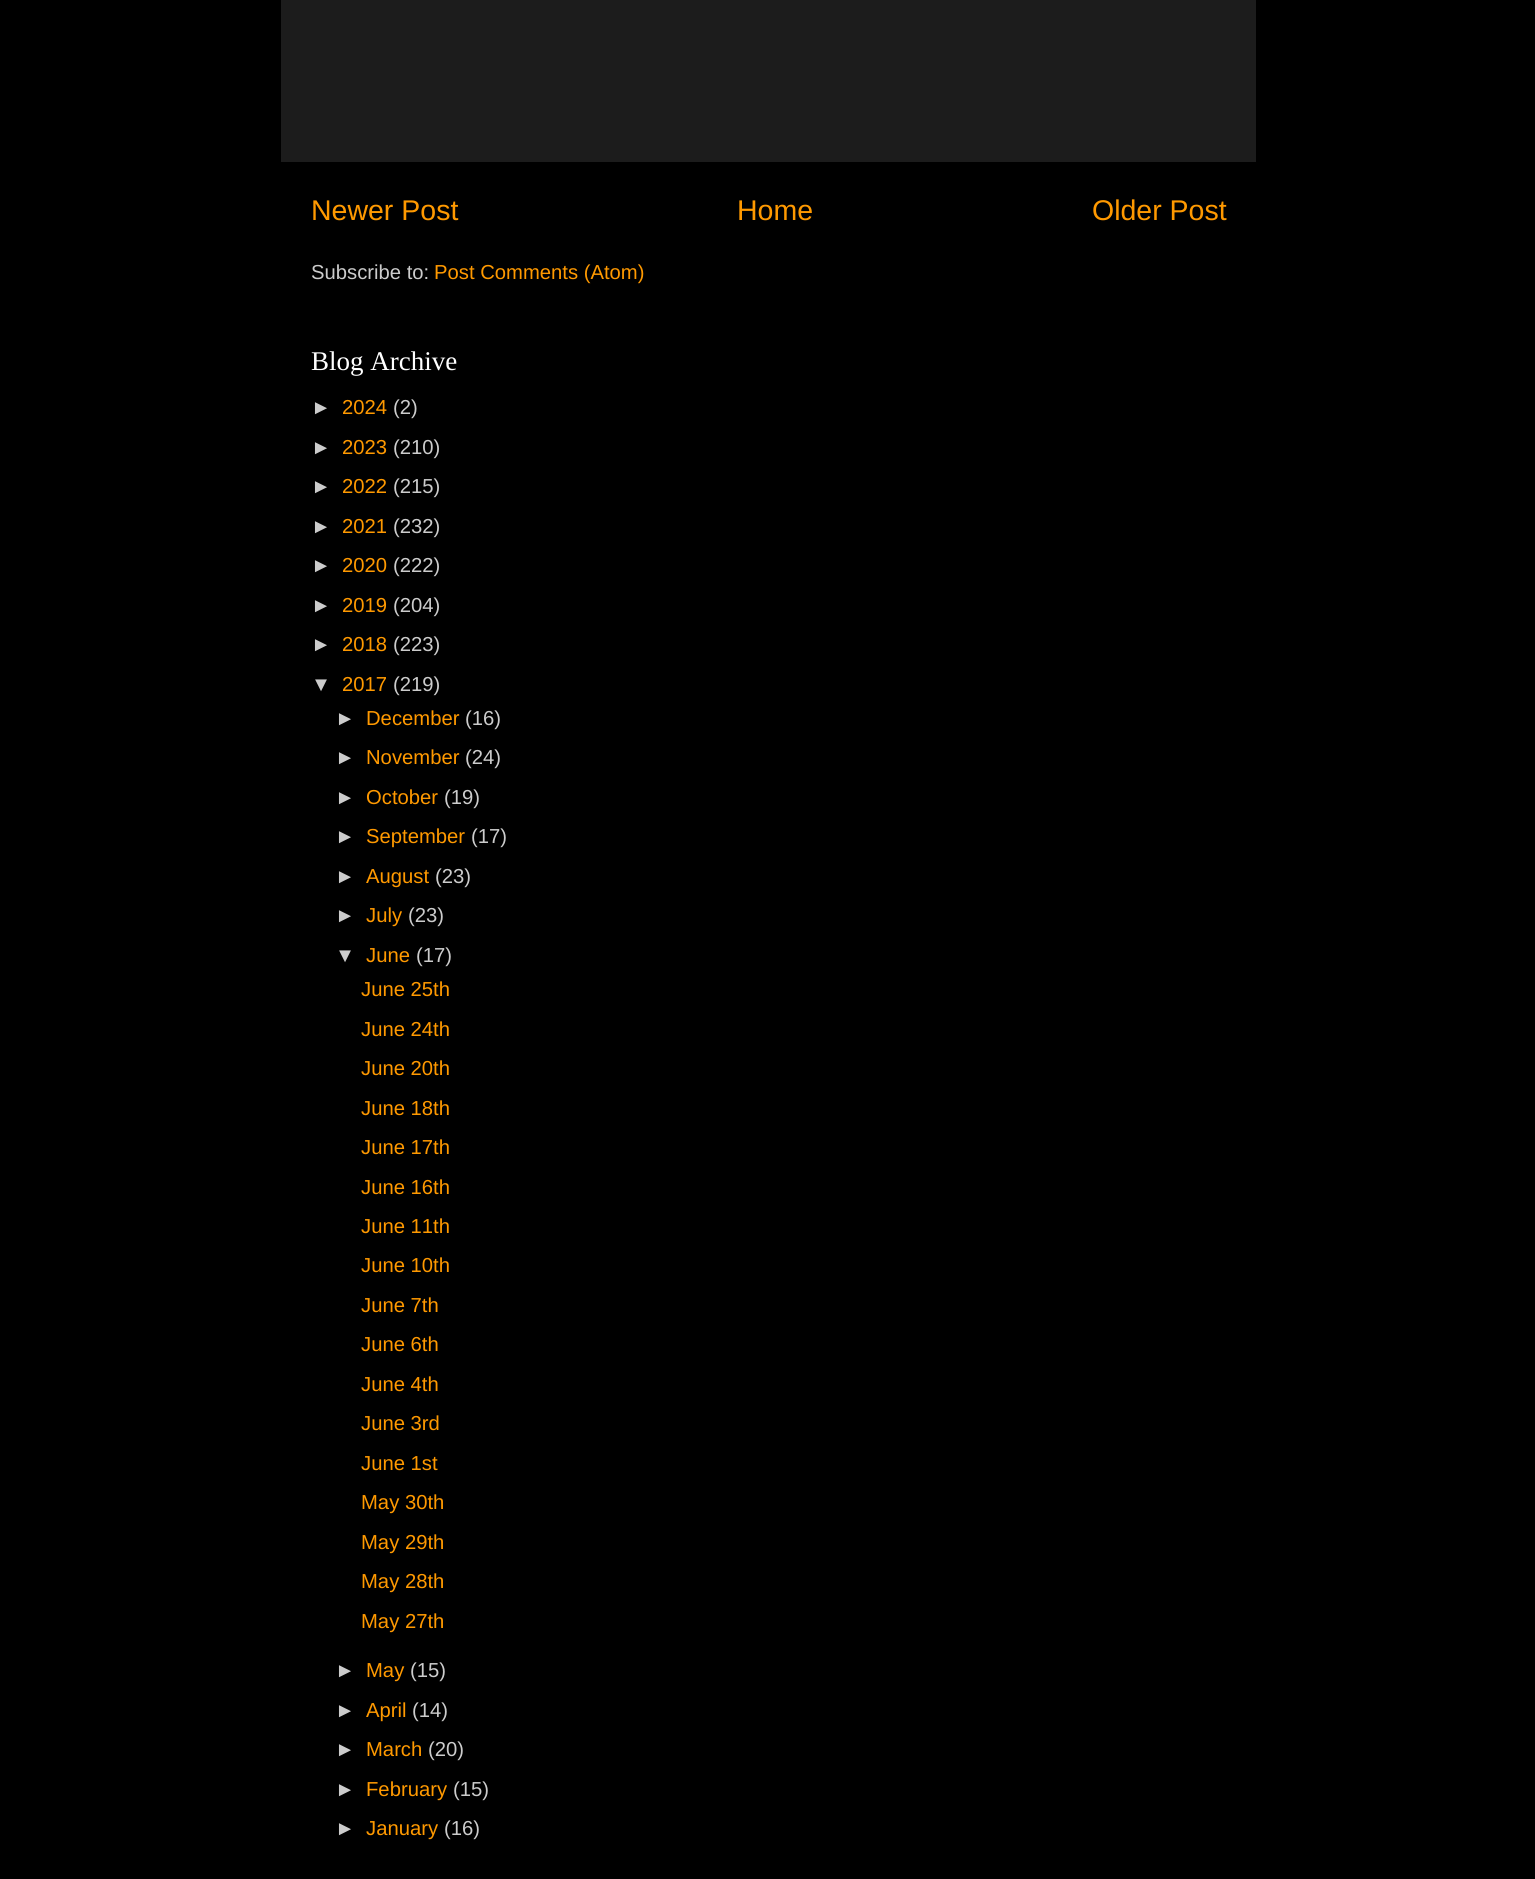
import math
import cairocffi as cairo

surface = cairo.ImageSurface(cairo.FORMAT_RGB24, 1535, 1879)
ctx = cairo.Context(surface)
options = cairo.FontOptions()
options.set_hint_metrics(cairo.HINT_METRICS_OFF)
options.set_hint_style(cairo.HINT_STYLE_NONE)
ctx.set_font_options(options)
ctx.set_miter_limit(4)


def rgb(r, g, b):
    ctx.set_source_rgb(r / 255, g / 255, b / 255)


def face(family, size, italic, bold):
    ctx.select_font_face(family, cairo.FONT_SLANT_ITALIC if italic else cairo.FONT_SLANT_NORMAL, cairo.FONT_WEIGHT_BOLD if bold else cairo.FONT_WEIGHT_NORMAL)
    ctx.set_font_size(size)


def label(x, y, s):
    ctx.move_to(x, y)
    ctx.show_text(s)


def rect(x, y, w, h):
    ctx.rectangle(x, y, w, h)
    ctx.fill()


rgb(0, 0, 0)
ctx.paint()
rgb(28, 28, 28)
rect(281, 0, 975, 162)
face('Liberation Sans', 28.5, 0, 0)
rgb(255, 153, 0)
label(311, 220, 'Newer Post')
label(737, 220, 'Home')
label(1092, 220, 'Older Post')
face('Liberation Sans', 20.25, 0, 0)
rgb(204, 204, 204)
label(311, 279, 'Subscribe to:')
rgb(255, 153, 0)
label(434, 279, 'Post Comments (Atom)')
face('Liberation Serif', 27, 0, 0)
rgb(255, 255, 255)
label(311, 370, 'Blog Archive')
face('Liberation Sans', 20.25, 0, 0)
rgb(204, 204, 204)
label(311, 414, '►')
rgb(255, 153, 0)
label(342, 414, '2024')
rgb(204, 204, 204)
label(393, 414, '(2)')
label(311, 454, '►')
rgb(255, 153, 0)
label(342, 454, '2023')
rgb(204, 204, 204)
label(393, 454, '(210)')
label(311, 493, '►')
rgb(255, 153, 0)
label(342, 493, '2022')
rgb(204, 204, 204)
label(393, 493, '(215)')
label(311, 533, '►')
rgb(255, 153, 0)
label(342, 533, '2021')
rgb(204, 204, 204)
label(393, 533, '(232)')
label(311, 572, '►')
rgb(255, 153, 0)
label(342, 572, '2020')
rgb(204, 204, 204)
label(393, 572, '(222)')
label(311, 612, '►')
rgb(255, 153, 0)
label(342, 612, '2019')
rgb(204, 204, 204)
label(393, 612, '(204)')
label(311, 651, '►')
rgb(255, 153, 0)
label(342, 651, '2018')
rgb(204, 204, 204)
label(393, 651, '(223)')
label(311, 691, '▼')
rgb(255, 153, 0)
label(342, 691, '2017')
rgb(204, 204, 204)
label(393, 691, '(219)')
label(335, 725, '►')
rgb(255, 153, 0)
label(366, 725, 'December')
rgb(204, 204, 204)
label(465, 725, '(16)')
label(335, 764, '►')
rgb(255, 153, 0)
label(366, 764, 'November')
rgb(204, 204, 204)
label(465, 764, '(24)')
label(335, 804, '►')
rgb(255, 153, 0)
label(366, 804, 'October')
rgb(204, 204, 204)
label(444, 804, '(19)')
label(335, 843, '►')
rgb(255, 153, 0)
label(366, 843, 'September')
rgb(204, 204, 204)
label(471, 843, '(17)')
label(335, 883, '►')
rgb(255, 153, 0)
label(366, 883, 'August')
rgb(204, 204, 204)
label(435, 883, '(23)')
label(335, 922, '►')
rgb(255, 153, 0)
label(366, 922, 'July')
rgb(204, 204, 204)
label(408, 922, '(23)')
label(335, 962, '▼')
rgb(255, 153, 0)
label(366, 962, 'June')
rgb(204, 204, 204)
label(416, 962, '(17)')
rgb(255, 153, 0)
label(361, 996, 'June 25th')
label(361, 1036, 'June 24th')
label(361, 1075, 'June 20th')
label(361, 1115, 'June 18th')
label(361, 1154, 'June 17th')
label(361, 1194, 'June 16th')
label(361, 1233, 'June 11th')
label(361, 1272, 'June 10th')
label(361, 1312, 'June 7th')
label(361, 1351, 'June 6th')
label(361, 1391, 'June 4th')
label(361, 1430, 'June 3rd')
label(361, 1470, 'June 1st')
label(361, 1509, 'May 30th')
label(361, 1549, 'May 29th')
label(361, 1588, 'May 28th')
label(361, 1628, 'May 27th')
rgb(204, 204, 204)
label(335, 1677, '►')
rgb(255, 153, 0)
label(366, 1677, 'May')
rgb(204, 204, 204)
label(410, 1677, '(15)')
label(335, 1717, '►')
rgb(255, 153, 0)
label(366, 1717, 'April')
rgb(204, 204, 204)
label(412, 1717, '(14)')
label(335, 1756, '►')
rgb(255, 153, 0)
label(366, 1756, 'March')
rgb(204, 204, 204)
label(428, 1756, '(20)')
label(335, 1796, '►')
rgb(255, 153, 0)
label(366, 1796, 'February')
rgb(204, 204, 204)
label(453, 1796, '(15)')
label(335, 1835, '►')
rgb(255, 153, 0)
label(366, 1835, 'January')
rgb(204, 204, 204)
label(444, 1835, '(16)')
surface.write_to_png('render.png')
